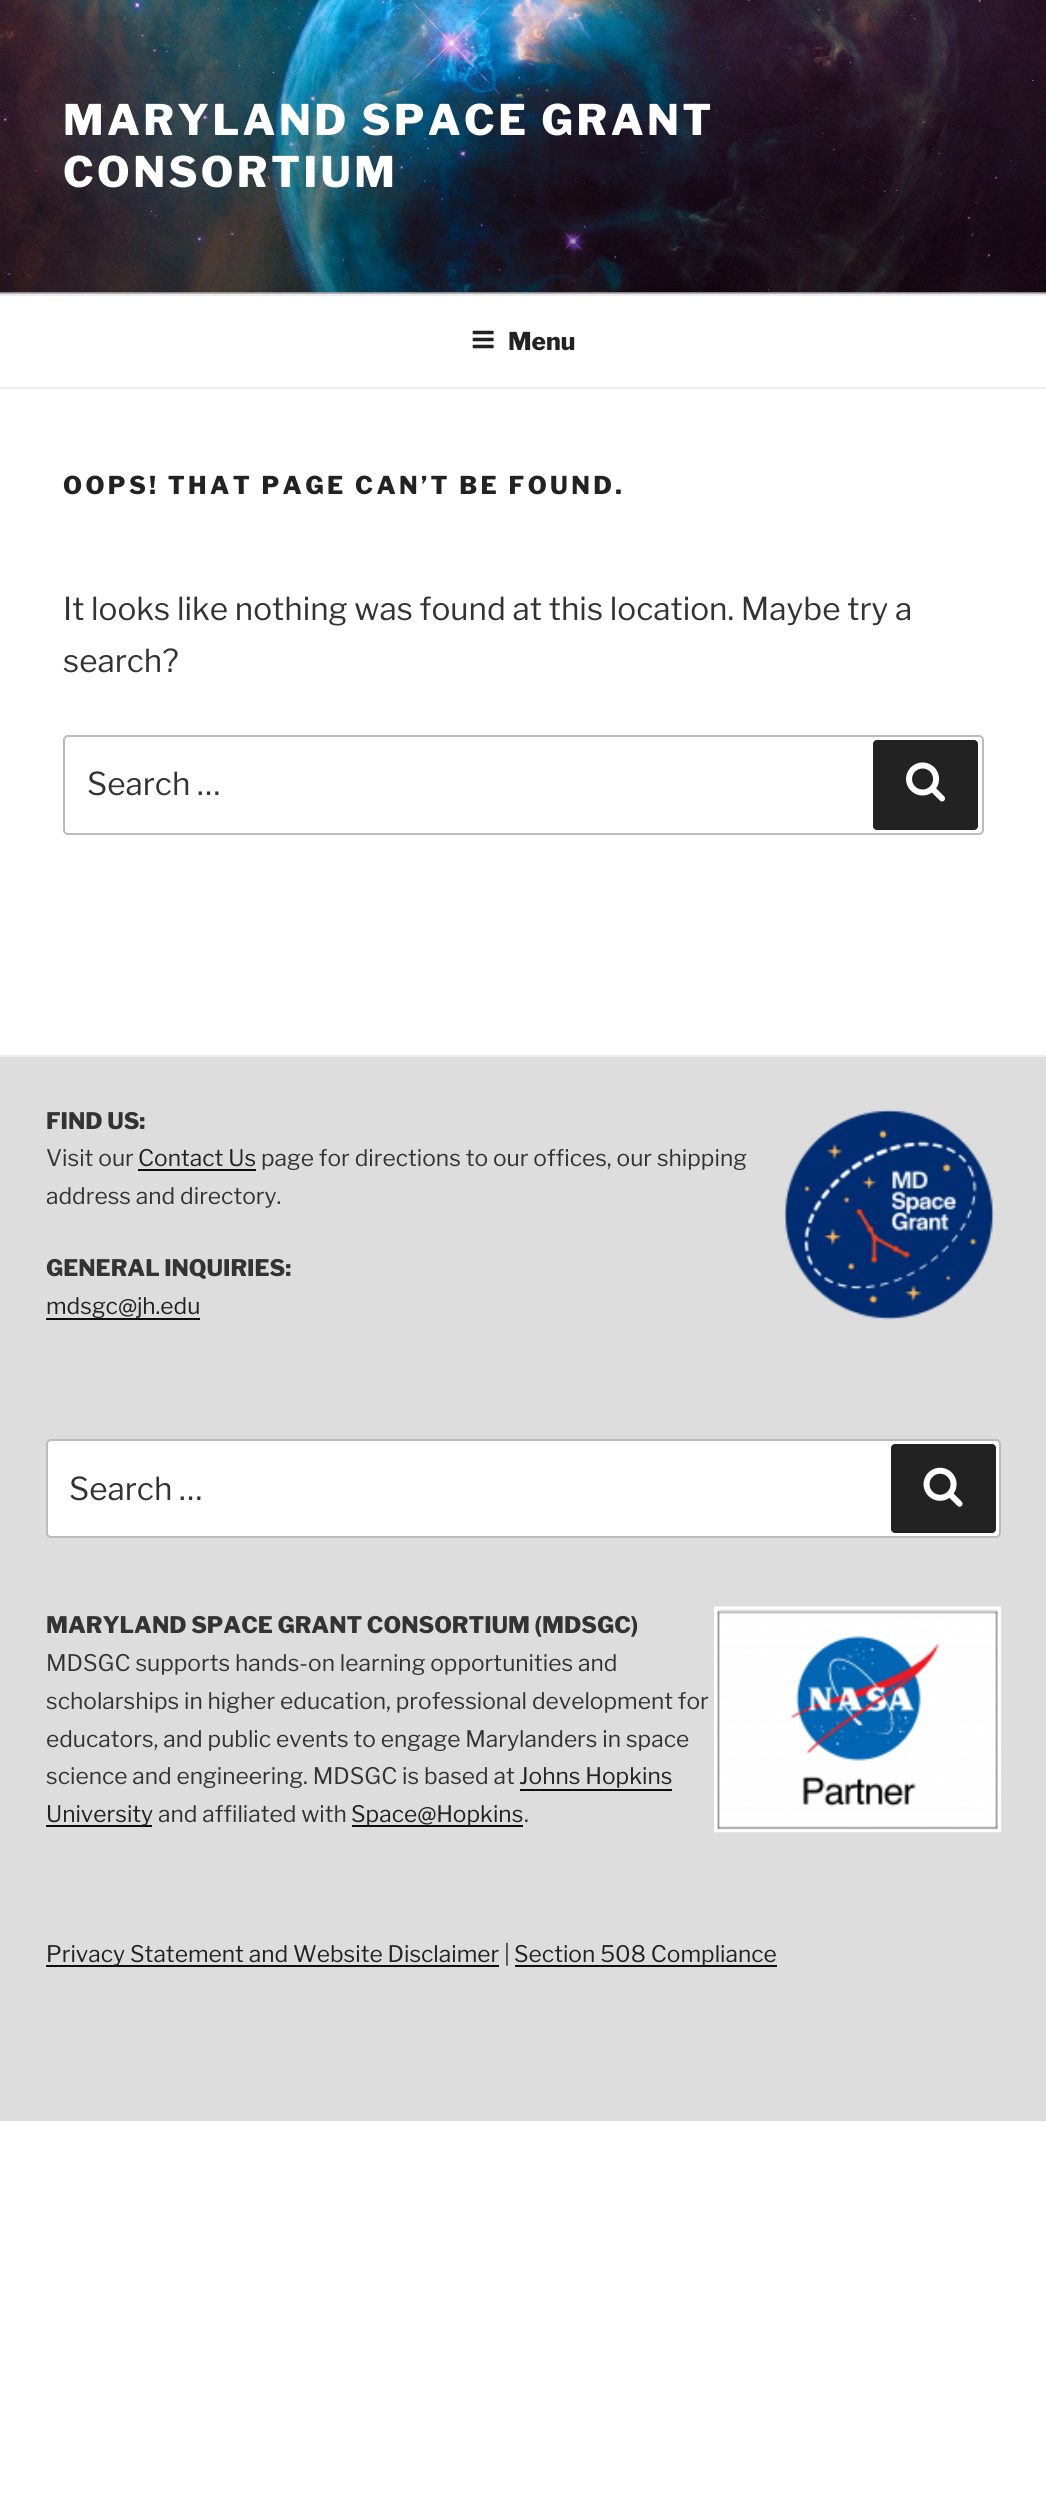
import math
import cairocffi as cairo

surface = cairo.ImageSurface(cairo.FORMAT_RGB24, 1046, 2510)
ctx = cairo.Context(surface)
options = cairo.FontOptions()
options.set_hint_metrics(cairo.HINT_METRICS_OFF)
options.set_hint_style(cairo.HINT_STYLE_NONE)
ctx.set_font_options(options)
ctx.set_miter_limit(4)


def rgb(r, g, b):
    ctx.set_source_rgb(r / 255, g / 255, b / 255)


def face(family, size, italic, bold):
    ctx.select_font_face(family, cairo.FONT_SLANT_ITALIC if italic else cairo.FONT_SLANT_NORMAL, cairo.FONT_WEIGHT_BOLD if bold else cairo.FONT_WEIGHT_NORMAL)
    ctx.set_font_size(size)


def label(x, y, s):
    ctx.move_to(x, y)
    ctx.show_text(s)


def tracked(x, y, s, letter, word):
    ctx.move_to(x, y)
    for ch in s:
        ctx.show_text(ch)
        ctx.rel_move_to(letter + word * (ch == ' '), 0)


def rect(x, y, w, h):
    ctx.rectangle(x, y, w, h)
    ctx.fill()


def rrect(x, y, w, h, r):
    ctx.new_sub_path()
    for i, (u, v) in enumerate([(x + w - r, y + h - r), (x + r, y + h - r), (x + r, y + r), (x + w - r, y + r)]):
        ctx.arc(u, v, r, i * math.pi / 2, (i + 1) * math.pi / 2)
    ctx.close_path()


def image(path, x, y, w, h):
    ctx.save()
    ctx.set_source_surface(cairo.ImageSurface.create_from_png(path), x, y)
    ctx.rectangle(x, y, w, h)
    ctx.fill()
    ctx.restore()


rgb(255, 255, 255)
ctx.paint()
rgb(250, 250, 250)
rect(0, 292, 1046, 2)
image('image0.png', 0, 0, 1046, 293)
gradient = cairo.LinearGradient(523, 0, 523, 294)
gradient.add_color_stop_rgba(0, 0, 0, 0, 0)
gradient.add_color_stop_rgba(0.75, 0, 0, 0, 0.3)
gradient.add_color_stop_rgba(1, 0, 0, 0, 0.3)
ctx.set_source(gradient)
rect(0, 16, 1046, 278)
face('Libre Franklin Thin', 42, 0, 0)
rgb(255, 255, 255)
tracked(63, 135, 'MARYLAND SPACE GRANT', 3.4, 0)
tracked(63, 187, 'CONSORTIUM', 3.4, 0)
rgb(238, 238, 238)
rect(0, 294, 1046, 2)
rect(0, 387, 1046, 2)
image('image1.png', 472, 330, 22, 19)
face('Libre Franklin Thin', 24.5, 0, 0)
rgb(34, 34, 34)
label(508, 350, 'Menu')
tracked(63, 494, 'OOPS! THAT PAGE CAN’T BE FOUND.', 3.4, 0)
face('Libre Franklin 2 Thin', 31.5, 0, 0)
rgb(51, 51, 51)
label(63, 620, 'It looks like nothing was found at this location. Maybe try a')
label(63, 672, 'search?')
rrect(64, 736, 919, 98, 4)
rgb(187, 187, 187)
ctx.stroke()
rgb(51, 51, 51)
label(87, 795, 'Search …')
rgb(34, 34, 34)
rrect(873, 740, 105, 90, 4)
ctx.fill()
image('image2.png', 906, 762, 39, 40)
rgb(221, 221, 221)
rect(0, 1057, 1046, 1064)
rgb(238, 238, 238)
rect(0, 1055, 1046, 2)
face('Libre Franklin Thin', 22.75, 0, 0)
rgb(51, 51, 51)
label(46, 1129, 'FIND US:')
image('image3.png', 784, 1109, 210, 211)
face('Libre Franklin 2 Thin', 22.75, 0, 0)
label(46, 1166, 'Visit our')
rgb(34, 34, 34)
label(138, 1166, 'Contact Us')
rgb(15, 15, 15)
rect(138, 1169, 118, 2)
rgb(51, 51, 51)
label(261, 1166, 'page for directions to our offices, our shipping')
label(46, 1204, 'address and directory.')
face('Libre Franklin Thin', 22.75, 0, 0)
label(46, 1276, 'GENERAL INQUIRIES:')
face('Libre Franklin 2 Thin', 22.75, 0, 0)
rgb(34, 34, 34)
label(46, 1314, 'mdsgc@jh.edu')
rgb(15, 15, 15)
rect(46, 1318, 154, 2)
rgb(255, 255, 255)
rrect(47, 1440, 953, 97, 4)
ctx.fill_preserve()
rgb(187, 187, 187)
ctx.stroke()
face('Libre Franklin 2 Thin', 31.5, 0, 0)
rgb(51, 51, 51)
label(69, 1500, 'Search …')
rgb(34, 34, 34)
rrect(891, 1444, 105, 89, 4)
ctx.fill()
image('image4.png', 923, 1467, 40, 40)
face('Libre Franklin Thin', 22.75, 0, 0)
rgb(51, 51, 51)
label(46, 1633, 'MARYLAND SPACE GRANT CONSORTIUM (MDSGC)')
image('image5.png', 714, 1606, 287, 227)
face('Libre Franklin 2 Thin', 22.75, 0, 0)
label(46, 1671, 'MDSGC supports hands-on learning opportunities and')
label(46, 1709, 'scholarships in higher education, professional development for')
label(46, 1747, 'educators, and public events to engage Marylanders in space')
label(46, 1784, 'science and engineering. MDSGC is based at')
rgb(34, 34, 34)
label(519, 1784, 'Johns Hopkins')
rgb(15, 15, 15)
rect(520, 1789, 152, 2)
rect(46, 1825, 106, 2)
rgb(34, 34, 34)
label(46, 1822, 'University')
rgb(51, 51, 51)
label(158, 1822, 'and affiliated with')
rgb(15, 15, 15)
rect(352, 1825, 171, 2)
rgb(34, 34, 34)
label(351, 1822, 'Space@Hopkins')
rgb(51, 51, 51)
label(524, 1822, '.')
rgb(15, 15, 15)
rect(46, 1965, 453, 2)
rgb(34, 34, 34)
label(46, 1962, 'Privacy Statement and Website Disclaimer')
rgb(51, 51, 51)
label(504, 1962, '|')
rgb(15, 15, 15)
rect(515, 1965, 262, 2)
rgb(34, 34, 34)
label(514, 1962, 'Section 508 Compliance')
surface.write_to_png('render.png')
